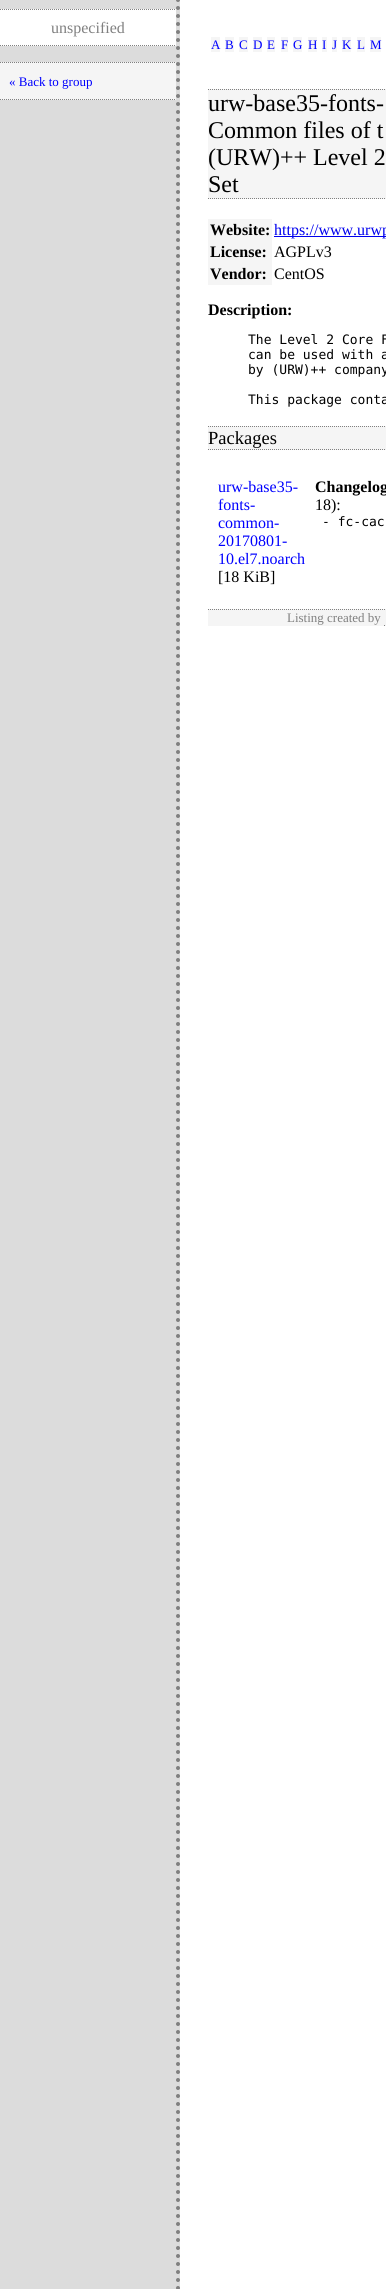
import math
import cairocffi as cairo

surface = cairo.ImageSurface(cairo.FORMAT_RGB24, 386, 2289)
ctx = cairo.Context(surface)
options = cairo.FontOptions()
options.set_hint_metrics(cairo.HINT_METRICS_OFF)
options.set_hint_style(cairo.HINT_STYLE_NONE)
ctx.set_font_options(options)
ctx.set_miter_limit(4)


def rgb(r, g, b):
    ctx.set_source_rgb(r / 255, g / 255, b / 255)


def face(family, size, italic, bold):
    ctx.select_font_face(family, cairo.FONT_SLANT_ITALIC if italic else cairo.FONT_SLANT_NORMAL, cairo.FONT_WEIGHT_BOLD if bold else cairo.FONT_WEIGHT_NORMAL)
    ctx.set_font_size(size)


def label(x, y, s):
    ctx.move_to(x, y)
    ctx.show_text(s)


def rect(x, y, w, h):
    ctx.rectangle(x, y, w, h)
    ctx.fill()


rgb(255, 255, 255)
ctx.paint()
rgb(220, 220, 220)
rect(0, 0, 180, 2289)
ctx.new_path()
ctx.move_to(178, 0)
ctx.line_to(178, 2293)
rgb(128, 128, 128)
ctx.set_line_width(4)
ctx.set_line_cap(cairo.LINE_CAP_ROUND)
ctx.set_dash([0, 8])
ctx.stroke()
rgb(255, 255, 255)
rect(0, 9, 176, 37)
ctx.new_path()
ctx.move_to(0, 9.5)
ctx.line_to(176, 9.5)
rgb(128, 128, 128)
ctx.set_line_width(1)
ctx.set_line_cap(cairo.LINE_CAP_BUTT)
ctx.set_dash([1, 1])
ctx.stroke()
ctx.new_path()
ctx.move_to(0, 45.5)
ctx.line_to(176, 45.5)
ctx.stroke()
face('Liberation Serif', 16, 0, 0)
label(51, 33, 'unspecified')
rgb(245, 245, 245)
rect(0, 62, 176, 38)
ctx.new_path()
ctx.move_to(0, 62.5)
ctx.line_to(176, 62.5)
rgb(128, 128, 128)
ctx.stroke()
ctx.new_path()
ctx.move_to(0, 99.5)
ctx.line_to(176, 99.5)
ctx.stroke()
face('Liberation Serif', 13, 0, 0)
rgb(0, 0, 255)
label(9, 86, '« Back to group')
rgb(245, 245, 245)
rect(211, 37, 9, 15)
rgb(0, 0, 255)
label(211, 49, 'A')
rgb(245, 245, 245)
rect(225, 37, 9, 15)
rgb(0, 0, 255)
label(225, 49, 'B')
rgb(245, 245, 245)
rect(239, 37, 9, 15)
rgb(0, 0, 255)
label(239, 49, 'C')
rgb(245, 245, 245)
rect(253, 37, 9, 15)
rgb(0, 0, 255)
label(253, 49, 'D')
rgb(245, 245, 245)
rect(267, 37, 8, 15)
rgb(0, 0, 255)
label(267, 49, 'E')
rgb(245, 245, 245)
rect(281, 37, 7, 15)
rgb(0, 0, 255)
label(281, 49, 'F')
rgb(245, 245, 245)
rect(293, 37, 9, 15)
rgb(0, 0, 255)
label(293, 49, 'G')
rgb(245, 245, 245)
rect(308, 37, 9, 15)
rgb(0, 0, 255)
label(308, 49, 'H')
rgb(245, 245, 245)
rect(322, 37, 5, 15)
rgb(0, 0, 255)
label(322, 49, 'I')
rgb(245, 245, 245)
rect(332, 37, 5, 15)
rgb(0, 0, 255)
label(332, 49, 'J')
rgb(245, 245, 245)
rect(342, 37, 9, 15)
rgb(0, 0, 255)
label(342, 49, 'K')
rgb(245, 245, 245)
rect(357, 37, 8, 15)
rgb(0, 0, 255)
label(357, 49, 'L')
rgb(245, 245, 245)
rect(370, 37, 11, 15)
rgb(0, 0, 255)
label(370, 49, 'M')
rgb(245, 245, 245)
rect(208, 89, 178, 110)
ctx.new_path()
ctx.move_to(208, 89.5)
ctx.line_to(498, 89.5)
rgb(128, 128, 128)
ctx.stroke()
ctx.new_path()
ctx.move_to(208, 198.5)
ctx.line_to(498, 198.5)
ctx.stroke()
face('Liberation Serif', 24, 0, 0)
rgb(0, 0, 0)
label(208, 111, 'urw-base35-fonts-')
label(208, 138, 'Common files of t')
label(208, 165, '(URW)++ Level 2')
label(208, 192, 'Set')
rgb(245, 245, 245)
rect(208, 219, 64, 66)
face('Liberation Serif', 16, 0, 1)
rgb(0, 0, 0)
label(210, 235, 'Website:')
rgb(0, 0, 238)
rect(274, 236, 112, 1)
face('Liberation Serif', 16, 0, 0)
label(274, 235, 'https://www.urwp')
face('Liberation Serif', 16, 0, 1)
rgb(0, 0, 0)
label(210, 257, 'License:')
face('Liberation Serif', 16, 0, 0)
label(274, 257, 'AGPLv3')
face('Liberation Serif', 16, 0, 1)
label(210, 279, 'Vendor:')
face('Liberation Serif', 16, 0, 0)
label(274, 279, 'CentOS')
face('Liberation Serif', 16, 0, 1)
label(208, 315, 'Description:')
face('DejaVu Sans Mono', 13, 0, 0)
label(248, 344, 'The Level 2 Core F')
label(248, 359, 'can be used with a')
label(248, 374, 'by (URW)++ company')
label(248, 404, 'This package conta')
rgb(245, 245, 245)
rect(208, 426, 178, 24)
ctx.new_path()
ctx.move_to(208, 426.5)
ctx.line_to(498, 426.5)
rgb(128, 128, 128)
ctx.stroke()
ctx.new_path()
ctx.move_to(208, 449.5)
ctx.line_to(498, 449.5)
ctx.stroke()
face('Liberation Serif', 18.5, 0, 0)
rgb(0, 0, 0)
label(208, 444, 'Packages')
face('Liberation Serif', 16, 0, 0)
rgb(0, 0, 255)
label(218, 492, 'urw-base35-')
label(218, 510, 'fonts-')
label(218, 528, 'common-')
label(218, 546, '20170801-')
label(218, 564, '10.el7.noarch')
rgb(0, 0, 0)
label(218, 582, '[18 KiB]')
face('Liberation Serif', 16, 0, 1)
label(315, 492, 'Changelog')
face('Liberation Serif', 16, 0, 0)
label(315, 510, '18):')
face('DejaVu Sans Mono', 13, 0, 0)
label(322, 526, '- fc-cac')
rgb(245, 245, 245)
rect(208, 609, 178, 17)
ctx.new_path()
ctx.move_to(208, 609.5)
ctx.line_to(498, 609.5)
rgb(128, 128, 128)
ctx.stroke()
face('Liberation Serif', 13, 0, 0)
label(287, 622, 'Listing created by')
ctx.new_path()
ctx.move_to(384, 625.5)
ctx.line_to(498, 625.5)
ctx.stroke()
surface.write_to_png('render.png')
